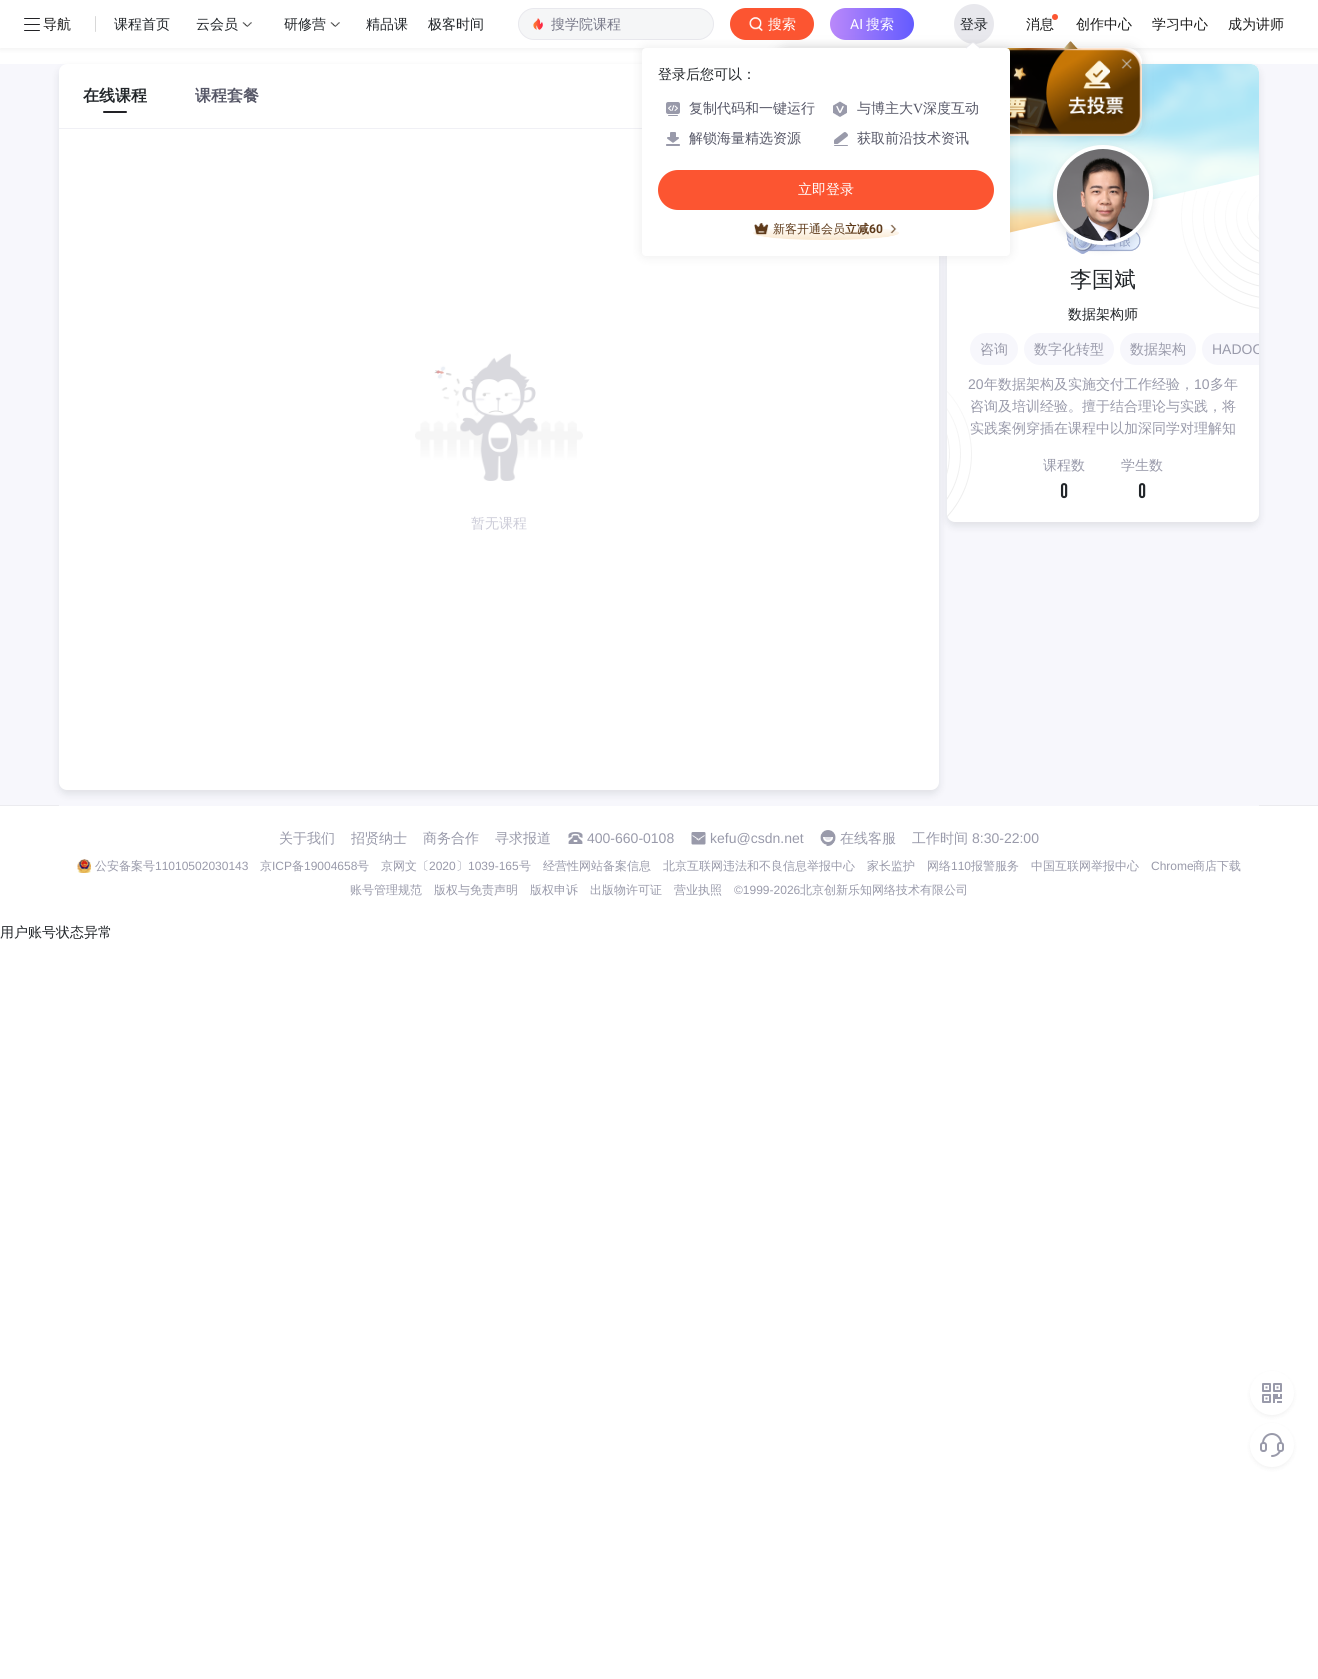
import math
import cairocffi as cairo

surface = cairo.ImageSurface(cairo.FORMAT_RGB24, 1318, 1679)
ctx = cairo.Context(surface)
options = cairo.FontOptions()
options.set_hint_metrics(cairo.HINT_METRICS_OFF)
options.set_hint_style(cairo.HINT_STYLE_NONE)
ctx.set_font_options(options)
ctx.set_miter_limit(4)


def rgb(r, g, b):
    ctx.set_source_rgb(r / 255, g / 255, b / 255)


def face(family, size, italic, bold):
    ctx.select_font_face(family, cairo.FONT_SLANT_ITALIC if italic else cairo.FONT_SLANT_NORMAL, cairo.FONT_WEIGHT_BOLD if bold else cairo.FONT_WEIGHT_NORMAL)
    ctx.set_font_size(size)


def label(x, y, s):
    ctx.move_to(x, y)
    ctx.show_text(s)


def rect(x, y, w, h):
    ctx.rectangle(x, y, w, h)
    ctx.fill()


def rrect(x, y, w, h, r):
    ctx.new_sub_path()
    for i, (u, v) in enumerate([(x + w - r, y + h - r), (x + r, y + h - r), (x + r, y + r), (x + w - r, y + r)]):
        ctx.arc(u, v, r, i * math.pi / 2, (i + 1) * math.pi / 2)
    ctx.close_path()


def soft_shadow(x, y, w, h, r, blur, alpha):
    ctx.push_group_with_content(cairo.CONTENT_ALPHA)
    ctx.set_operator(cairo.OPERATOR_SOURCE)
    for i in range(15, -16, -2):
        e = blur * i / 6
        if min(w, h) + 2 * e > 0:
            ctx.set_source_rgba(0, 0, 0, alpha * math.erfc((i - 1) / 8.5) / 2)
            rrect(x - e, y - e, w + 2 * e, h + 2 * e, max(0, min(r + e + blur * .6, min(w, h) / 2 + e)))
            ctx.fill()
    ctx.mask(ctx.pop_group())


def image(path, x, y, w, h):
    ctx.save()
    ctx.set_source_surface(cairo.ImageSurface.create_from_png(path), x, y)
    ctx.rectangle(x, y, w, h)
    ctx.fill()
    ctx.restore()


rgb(255, 255, 255)
ctx.paint()
rgb(0, 0, 0)
soft_shadow(0, 2, 1318, 48, 0, 2, 0.05)
rgb(255, 255, 255)
rect(0, 0, 1318, 48)
image('image0.png', 24, 18, 16, 13)
face('WenQuanYi Zen Hei Medium', 14, 0, 0)
rgb(26, 26, 26)
label(43, 29, '导航')
rgb(216, 216, 216)
rrect(95, 16, 1, 16, 0.5)
ctx.fill()
rgb(33, 37, 41)
label(114, 29, '课程首页')
label(196, 29, '云会员')
image('image1.png', 242, 22, 10, 5)
label(284, 29, '研修营')
image('image1.png', 330, 22, 10, 5)
label(366, 29, '精品课')
label(428, 29, '极客时间')
rgb(245, 246, 247)
rrect(518.5, 8.5, 195, 31, 15.5)
ctx.fill_preserve()
rgb(232, 232, 237)
ctx.set_line_width(1)
ctx.stroke()
image('image2.png', 533, 18, 10, 12)
rgb(119, 120, 136)
label(551, 29, '搜学院课程')
rgb(252, 85, 49)
rrect(730, 8, 84, 32, 16)
ctx.fill()
image('image3.png', 749, 17, 14, 15)
rgb(255, 255, 255)
label(768, 29, '搜索')
gradient = cairo.LinearGradient(830, 24, 914, 24)
gradient.add_color_stop_rgba(0, 0.729, 0.533, 0.98, 1)
gradient.add_color_stop_rgba(1, 0.388, 0.357, 1, 1)
ctx.set_source(gradient)
rrect(830, 8, 84, 32, 16)
ctx.fill()
face('Roboto', 14, 0, 0)
rgb(255, 255, 255)
label(850, 29, 'AI')
face('WenQuanYi Zen Hei Medium', 14, 0, 0)
label(866, 29, '搜索')
rgb(232, 232, 237)
ctx.new_path()
ctx.arc(974, 24, 20, 0, 2 * math.pi)
ctx.fill()
rgb(33, 37, 41)
label(960, 29, '登录')
rgb(247, 247, 252)
rect(0, 64, 1318, 741)
rgb(235, 235, 239)
rect(0, 805, 1318, 1)
rgb(247, 247, 252)
rect(59, 805, 1200, 1)
rgb(7, 17, 27)
soft_shadow(59, 68, 880, 726, 8, 4, 0.1)
rgb(255, 255, 255)
rrect(59, 64, 880, 726, 8)
ctx.fill()
rgb(7, 17, 27)
soft_shadow(947, 68, 312, 458, 8, 4, 0.1)
rgb(255, 255, 255)
rrect(947, 64, 312, 458, 8)
ctx.fill()
image('image16.png', 1010, 64, 249, 169)
image('image19.png', 1066, 230, 75, 24)
rgb(7, 17, 27)
soft_shadow(1053, 149, 100, 100, 50, 4, 0.1)
ctx.arc(1103, 195, 48, 0, 2 * math.pi)
rgb(255, 255, 255)
ctx.set_line_width(4)
ctx.stroke()
image('image17.png', 1057, 149, 92, 92)
ctx.save()
ctx.set_fill_rule(cairo.FILL_RULE_EVEN_ODD)
ctx.new_path()
ctx.move_to(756, 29)
ctx.line_to(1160, 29)
ctx.line_to(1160, 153)
ctx.line_to(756, 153)
ctx.close_path()
ctx.move_to(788, 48)
ctx.line_to(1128, 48)
ctx.curve_to(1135.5, 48, 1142, 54.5, 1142, 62)
ctx.line_to(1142, 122)
ctx.curve_to(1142, 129.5, 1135.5, 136, 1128, 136)
ctx.line_to(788, 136)
ctx.curve_to(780.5, 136, 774, 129.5, 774, 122)
ctx.line_to(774, 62)
ctx.curve_to(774, 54.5, 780.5, 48, 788, 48)
ctx.close_path()
ctx.clip()
rgb(103, 103, 103)
soft_shadow(774, 47, 368, 88, 14, 5.5, 0.19)
ctx.restore()
image('image13.png', 1006, 48, 136, 88)
rgb(240, 240, 245)
rect(59, 128, 583, 1)
rgb(0, 0, 0)
soft_shadow(640, 46, 372, 212, 6, 5, 0.06)
rgb(255, 255, 255)
rrect(642, 48, 368, 208, 4)
ctx.fill()
image('image4.png', 966, 42, 14, 7)
rgb(33, 37, 41)
label(658, 79, '登录后您可以：')
image('image5.png', 666, 102, 14, 14)
rgb(85, 86, 102)
label(689, 113, '复制代码和一键运行')
image('image6.png', 833, 101, 14, 16)
label(857, 113, '与博主大')
face('Liberation Serif', 14, 0, 0)
label(913, 113, 'V')
face('WenQuanYi Zen Hei Medium', 14, 0, 0)
label(923, 113, '深度互动')
image('image7.png', 666, 132, 14, 14)
label(689, 143, '解锁海量精选资源')
image('image8.png', 834, 132, 14, 14)
label(857, 143, '获取前沿技术资讯')
rgb(252, 85, 49)
rrect(658, 170, 336, 40, 20)
ctx.fill()
rgb(255, 255, 255)
label(798, 194, '立即登录')
image('image9.png', 753, 227, 146, 13)
image('image10.png', 754, 223, 15, 12)
face('WenQuanYi Zen Hei Medium', 12, 0, 0)
rgb(94, 58, 26)
label(773, 233, '新客开通会员')
face('WenQuanYi Zen Hei', 12, 0, 1)
label(845, 233, '立减')
face('Roboto', 12, 0, 1)
label(869, 233, '60')
image('image11.png', 890, 224, 7, 10)
face('WenQuanYi Zen Hei Medium', 14, 0, 0)
rgb(26, 26, 26)
label(1026, 29, '消息')
rgb(252, 85, 49)
ctx.new_path()
ctx.arc(1055, 17, 3, 0, 2 * math.pi)
ctx.fill()
rgb(26, 26, 26)
label(1076, 29, '创作中心')
label(1152, 29, '学习中心')
label(1228, 29, '成为讲师')
image('image12.png', 1063, 41, 15, 8)
image('image14.png', 1121, 58, 11, 11)
face('WenQuanYi Zen Hei', 16, 0, 1)
rgb(33, 37, 41)
label(83, 101, '在线课程')
rgb(34, 34, 38)
rrect(103, 111, 24, 2, 1)
ctx.fill()
rgb(85, 86, 102)
label(195, 101, '课程套餐')
image('image15.png', 415, 353, 168, 128)
face('WenQuanYi Zen Hei Medium', 14, 0, 0)
rgb(204, 204, 216)
label(471, 528, '暂无课程')
image('image18.png', 1181, 191, 78, 118)
face('WenQuanYi Zen Hei Medium', 22, 0, 0)
rgb(33, 37, 41)
label(1070, 287, '李国斌')
face('WenQuanYi Zen Hei Medium', 14, 0, 0)
label(1068, 319, '数据架构师')
rgb(247, 247, 252)
rrect(970, 333, 48, 32, 16)
ctx.fill()
rgb(153, 154, 170)
label(980, 354, '咨询')
rgb(247, 247, 252)
rrect(1024, 333, 90, 32, 16)
ctx.fill()
rgb(153, 154, 170)
label(1034, 354, '数字化转型')
rgb(247, 247, 252)
rrect(1120, 333, 76, 32, 16)
ctx.fill()
rgb(153, 154, 170)
label(1130, 354, '数据架构')
rgb(247, 247, 252)
ctx.new_path()
ctx.move_to(1218, 333)
ctx.line_to(1259, 333)
ctx.line_to(1259, 365)
ctx.line_to(1218, 365)
ctx.curve_to(1209, 365, 1202, 358, 1202, 349)
ctx.curve_to(1202, 340, 1209, 333, 1218, 333)
ctx.close_path()
ctx.fill()
ctx.save()
ctx.rectangle(947, 333, 312, 32)
ctx.clip()
face('Liberation Sans', 14, 0, 0)
rgb(153, 154, 170)
label(1212, 354, 'HADOO')
ctx.restore()
rgb(153, 154, 170)
label(970, 411, '咨询及培训经验。擅于结合理论与实践，将')
label(970, 433, '实践案例穿插在课程中以加深同学对理解知')
image('image20.png', 947, 391, 25, 126)
face('Liberation Sans', 14, 0, 0)
label(968, 389, '20')
face('WenQuanYi Zen Hei Medium', 14, 0, 0)
label(984, 389, '年数据架构及实施交付工作经验，')
face('Liberation Sans', 14, 0, 0)
label(1194, 389, '10')
face('WenQuanYi Zen Hei Medium', 14, 0, 0)
label(1210, 389, '多年')
label(1043, 470, '课程数')
face('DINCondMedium', 20, 0, 1)
rgb(33, 37, 41)
label(1060, 498, '0')
face('WenQuanYi Zen Hei Medium', 14, 0, 0)
rgb(153, 154, 170)
label(1121, 470, '学生数')
face('DINCondMedium', 20, 0, 1)
rgb(33, 37, 41)
label(1138, 498, '0')
face('WenQuanYi Zen Hei Medium', 14, 0, 0)
rgb(153, 154, 170)
label(279, 843, '关于我们')
label(351, 843, '招贤纳士')
label(423, 843, '商务合作')
label(495, 843, '寻求报道')
image('image21.png', 568, 832, 15, 12)
face('Liberation Sans', 14, 0, 0)
label(587, 843, '400-660-0108')
image('image22.png', 691, 832, 15, 13)
label(710, 843, 'kefu@csdn.net')
image('image23.png', 820, 830, 16, 16)
face('WenQuanYi Zen Hei Medium', 14, 0, 0)
label(840, 843, '在线客服')
label(912, 843, '工作时间')
face('Liberation Sans', 14, 0, 0)
label(972, 843, '8:30-22:00')
image('image24.png', 77, 859, 14, 14)
face('WenQuanYi Zen Hei Medium', 12, 0, 0)
label(95, 870, '公安备案号')
face('Liberation Sans', 12, 0, 0)
label(155, 870, '11010502030143')
face('WenQuanYi Zen Hei Medium', 12, 0, 0)
label(260, 870, '京')
face('Liberation Sans', 12, 0, 0)
label(272, 870, 'ICP')
face('WenQuanYi Zen Hei Medium', 12, 0, 0)
label(292, 870, '备')
face('Liberation Sans', 12, 0, 0)
label(304, 870, '19004658')
face('WenQuanYi Zen Hei Medium', 12, 0, 0)
label(357, 870, '号')
label(381, 870, '京网文〔')
face('Liberation Sans', 12, 0, 0)
label(429, 870, '2020')
face('WenQuanYi Zen Hei Medium', 12, 0, 0)
label(456, 870, '〕')
face('Liberation Sans', 12, 0, 0)
label(468, 870, '1039-165')
face('WenQuanYi Zen Hei Medium', 12, 0, 0)
label(519, 870, '号')
label(543, 870, '经营性网站备案信息')
label(663, 870, '北京互联网违法和不良信息举报中心')
label(867, 870, '家长监护')
label(927, 870, '网络')
face('Liberation Sans', 12, 0, 0)
label(951, 870, '110')
face('WenQuanYi Zen Hei Medium', 12, 0, 0)
label(971, 870, '报警服务')
label(1031, 870, '中国互联网举报中心')
face('Liberation Sans', 12, 0, 0)
label(1151, 870, 'Chrome')
face('WenQuanYi Zen Hei Medium', 12, 0, 0)
label(1193, 870, '商店下载')
label(350, 894, '账号管理规范')
label(434, 894, '版权与免责声明')
label(530, 894, '版权申诉')
label(590, 894, '出版物许可证')
label(674, 894, '营业执照')
face('Liberation Sans', 12, 0, 0)
label(734, 894, '©1999-2026')
face('WenQuanYi Zen Hei Medium', 12, 0, 0)
label(800, 894, '北京创新乐知网络技术有限公司')
face('WenQuanYi Zen Hei Medium', 14, 0, 0)
rgb(33, 37, 41)
label(0, 937, '用户账号状态异常')
rgb(0, 0, 0)
soft_shadow(1250, 1373, 44, 44, 22, 2, 0.05)
rgb(255, 255, 255)
ctx.arc(1272, 1393, 22, 0, 2 * math.pi)
ctx.fill()
image('image25.png', 1262, 1383, 20, 20)
rgb(0, 0, 0)
soft_shadow(1250, 1425, 44, 44, 22, 2, 0.05)
rgb(255, 255, 255)
ctx.arc(1272, 1445, 22, 0, 2 * math.pi)
ctx.fill()
image('image26.png', 1260, 1433, 24, 24)
surface.write_to_png('render.png')
